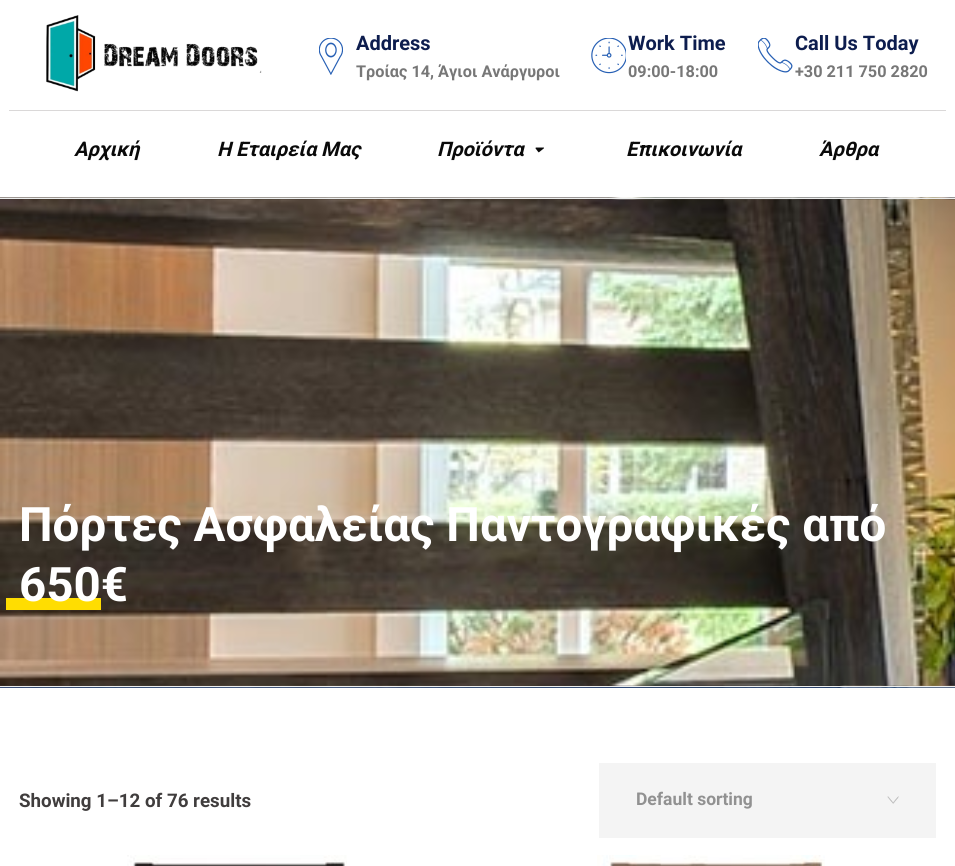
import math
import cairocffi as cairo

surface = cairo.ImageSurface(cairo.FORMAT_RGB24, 955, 866)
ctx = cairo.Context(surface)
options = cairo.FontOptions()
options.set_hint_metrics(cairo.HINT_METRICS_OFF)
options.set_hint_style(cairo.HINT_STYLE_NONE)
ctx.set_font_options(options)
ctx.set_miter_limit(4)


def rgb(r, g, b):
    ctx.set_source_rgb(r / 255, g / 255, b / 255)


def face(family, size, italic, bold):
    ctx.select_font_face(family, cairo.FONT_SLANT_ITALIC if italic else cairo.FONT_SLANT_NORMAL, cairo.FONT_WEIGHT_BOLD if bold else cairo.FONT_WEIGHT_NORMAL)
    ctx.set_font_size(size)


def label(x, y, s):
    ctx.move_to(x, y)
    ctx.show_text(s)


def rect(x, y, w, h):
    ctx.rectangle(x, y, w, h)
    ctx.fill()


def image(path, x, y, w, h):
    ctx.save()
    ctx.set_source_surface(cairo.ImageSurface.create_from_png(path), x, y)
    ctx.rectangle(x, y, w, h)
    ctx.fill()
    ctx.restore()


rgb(255, 255, 255)
ctx.paint()
rgb(218, 216, 216)
rect(9, 110, 937, 1)
image('image0.png', 46, 15, 216, 77)
image('image1.png', 319, 38, 24, 37)
face('Roboto', 20, 0, 1)
rgb(13, 29, 78)
label(356, 50, 'Address')
face('Roboto', 16.25, 0, 1)
rgb(119, 119, 119)
label(356, 77, 'Τροίας 14, Άγιοι Ανάργυροι')
image('image2.png', 591, 38, 35, 36)
face('Roboto', 20, 0, 1)
rgb(13, 29, 78)
label(628, 50, 'Work Time')
face('Roboto', 16.25, 0, 1)
rgb(119, 119, 119)
label(628, 77, '09:00-18:00')
image('image3.png', 758, 38, 35, 35)
face('Roboto', 20, 0, 1)
rgb(13, 29, 78)
label(795, 50, 'Call Us Today')
face('Roboto', 16.25, 0, 1)
rgb(119, 119, 119)
label(795, 77, '+30 211 750 2820')
face('Roboto', 20, 1, 1)
rgb(10, 10, 10)
label(74, 156, 'Αρχική')
label(217, 156, 'Η Εταιρεία Μας')
label(437, 156, 'Προϊόντα')
image('image4.png', 535, 147, 9, 6)
label(626, 156, 'Επικοινωνία')
label(819, 156, 'Άρθρα')
rgb(38, 95, 180)
rect(0, 687, 955, 1)
image('image5.png', 0, 197, 955, 491)
rgb(235, 237, 237)
rect(0, 198, 955, 1)
rect(0, 686, 955, 1)
face('Roboto', 47.5, 0, 1)
rgb(255, 255, 255)
label(19, 541, 'Πόρτες Ασφαλείας Παντογραφικές από')
rgb(255, 221, 1)
rect(6, 598, 95, 12)
rgb(255, 255, 255)
label(19, 601, '650€')
face('Roboto', 18.75, 0, 1)
rgb(64, 61, 61)
label(19, 807, 'Showing 1–12 of 76 results')
rgb(244, 244, 244)
rect(599, 763, 337, 75)
image('image6.png', 887, 796, 12, 8)
face('Roboto', 17.5, 0, 1)
rgb(145, 145, 145)
label(636, 805, 'Default sorting')
image('image7.png', 127, 855, 220, 11)
image('image8.png', 597, 855, 228, 11)
surface.write_to_png('render.png')
